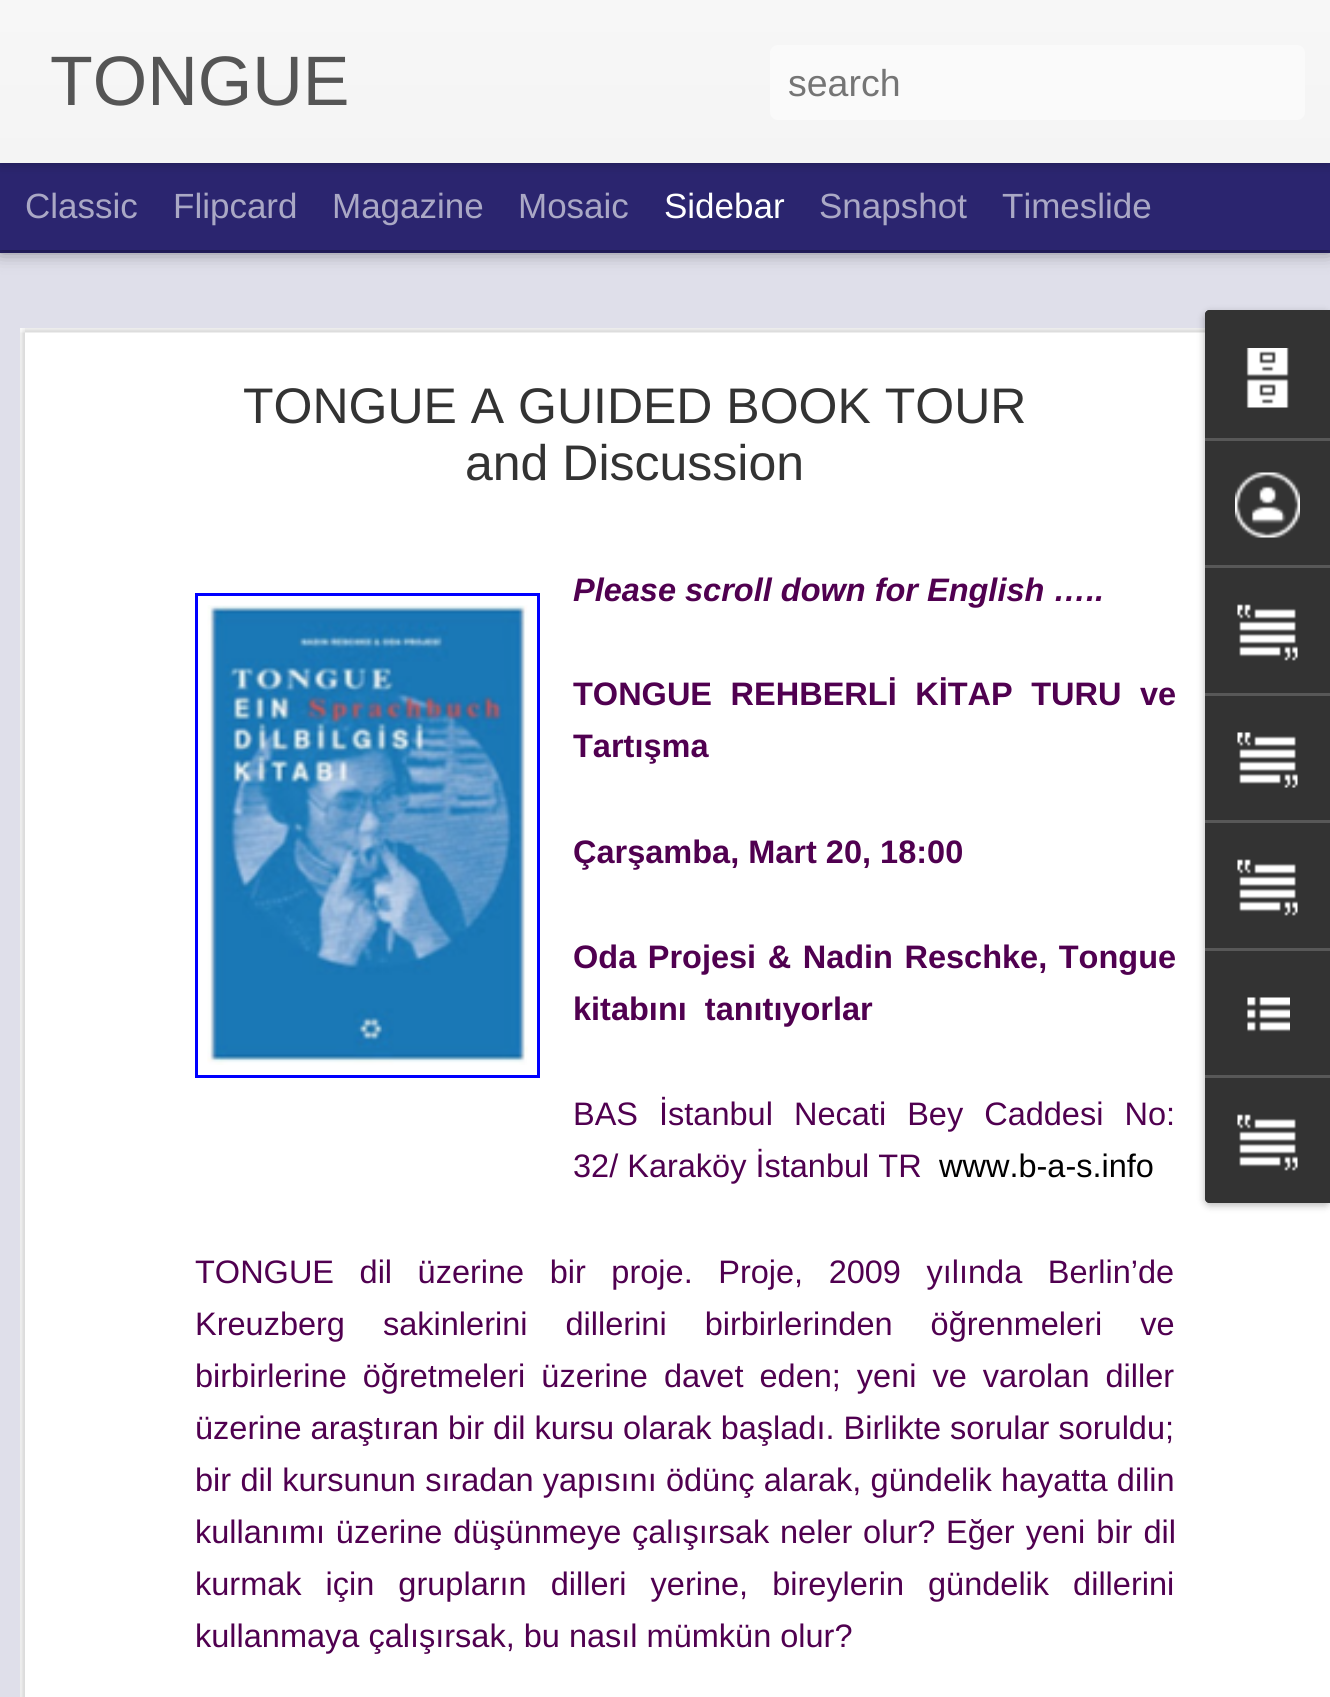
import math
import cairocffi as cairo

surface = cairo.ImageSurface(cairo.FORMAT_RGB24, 1330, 1697)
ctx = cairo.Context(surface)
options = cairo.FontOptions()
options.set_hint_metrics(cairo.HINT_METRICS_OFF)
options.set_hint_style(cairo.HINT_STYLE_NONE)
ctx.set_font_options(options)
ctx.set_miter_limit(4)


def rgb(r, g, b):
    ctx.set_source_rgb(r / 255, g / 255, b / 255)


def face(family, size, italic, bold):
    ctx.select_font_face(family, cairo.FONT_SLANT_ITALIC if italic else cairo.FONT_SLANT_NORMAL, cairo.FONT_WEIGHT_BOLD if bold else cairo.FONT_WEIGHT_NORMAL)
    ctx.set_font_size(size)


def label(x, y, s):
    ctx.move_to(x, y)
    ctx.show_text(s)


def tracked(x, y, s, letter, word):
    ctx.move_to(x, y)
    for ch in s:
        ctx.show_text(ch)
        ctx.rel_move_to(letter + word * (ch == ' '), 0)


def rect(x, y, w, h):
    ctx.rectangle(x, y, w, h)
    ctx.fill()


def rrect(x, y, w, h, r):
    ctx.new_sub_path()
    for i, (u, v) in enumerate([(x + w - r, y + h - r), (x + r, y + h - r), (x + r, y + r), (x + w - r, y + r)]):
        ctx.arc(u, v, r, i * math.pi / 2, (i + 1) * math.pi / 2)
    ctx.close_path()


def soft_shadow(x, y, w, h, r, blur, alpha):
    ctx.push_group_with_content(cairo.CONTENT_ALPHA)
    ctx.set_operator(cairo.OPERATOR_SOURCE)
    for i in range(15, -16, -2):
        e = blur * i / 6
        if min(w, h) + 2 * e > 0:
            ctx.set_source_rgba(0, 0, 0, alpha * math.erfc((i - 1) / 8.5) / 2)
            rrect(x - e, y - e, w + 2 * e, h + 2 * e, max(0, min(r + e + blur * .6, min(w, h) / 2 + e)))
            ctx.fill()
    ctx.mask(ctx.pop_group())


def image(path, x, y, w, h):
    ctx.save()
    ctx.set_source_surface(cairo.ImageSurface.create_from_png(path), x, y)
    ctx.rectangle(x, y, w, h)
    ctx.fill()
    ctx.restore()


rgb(43, 37, 111)
ctx.paint()
rgb(223, 223, 234)
rect(0, 253, 1330, 1444)
rgb(0, 0, 0)
soft_shadow(0, 163, 1330, 87, 0, 10, 0.5)
rgb(43, 37, 111)
rect(0, 163, 1330, 87)
rgb(0, 0, 0)
soft_shadow(0, 0, 1330, 163, 0, 6, 0.3)
gradient = cairo.LinearGradient(0, 0, 0, 163)
gradient.add_color_stop_rgba(0, 0.969, 0.969, 0.969, 1)
gradient.add_color_stop_rgba(1, 0.957, 0.957, 0.957, 1)
ctx.set_source(gradient)
rect(0, 0, 1330, 163)
face('Liberation Sans', 70, 0, 0)
rgb(85, 85, 85)
label(50, 105, 'TONGUE')
rgb(250, 250, 250)
rrect(770, 45, 535, 75, 8)
ctx.fill()
face('Liberation Sans', 37.5, 0, 0)
rgb(117, 117, 117)
label(788, 96, 'search')
face('Liberation Sans', 35, 0, 0)
rgb(170, 168, 197)
label(25, 218, 'Classic')
label(173, 218, 'Flipcard')
label(332, 218, 'Magazine')
label(518, 218, 'Mosaic')
rgb(255, 255, 255)
label(664, 218, 'Sidebar')
rgb(170, 168, 197)
label(819, 218, 'Snapshot')
label(1002, 218, 'Timeslide')
rgb(255, 255, 255)
rect(20, 328, 1310, 1369)
image('image0.png', 20, 328, 1185, 1369)
face('Liberation Sans', 50, 0, 0)
rgb(51, 51, 51)
label(243, 423, 'TONGUE A GUIDED BOOK TOUR')
label(465, 480, 'and Discussion')
ctx.rectangle(196.5, 594.5, 342, 482)
rgb(0, 0, 255)
ctx.set_line_width(3)
ctx.stroke()
image('image1.png', 207, 605, 321, 460)
face('Liberation Sans', 32.5, 1, 1)
rgb(80, 0, 80)
label(573, 601, 'Please scroll down for English …..')
face('Liberation Sans', 32.5, 0, 1)
tracked(573, 705, 'TONGUE REHBERLİ KİTAP TURU ve', 0, 9.5)
label(573, 757, 'Tartışma')
label(573, 863, 'Çarşamba, Mart 20, 18:00')
tracked(573, 968, 'Oda Projesi & Nadin Reschke, Tongue', 0, 2.5)
tracked(573, 1020, 'kitabını tanıtıyorlar', 0, 9)
face('Liberation Sans', 32.5, 0, 0)
tracked(573, 1125, 'BAS İstanbul', 0, 12)
tracked(794, 1125, 'Necati Bey Caddesi No:', 0, 12)
label(573, 1177, '32/ Karaköy İstanbul TR')
rgb(0, 0, 0)
label(939, 1177, 'www.b-a-s.info')
rgb(80, 0, 80)
tracked(195, 1283, 'TONGUE dil üzerine bir proje. Proje, 2009 yılında Berlin’de', 0, 16.5)
tracked(195, 1335, 'Kreuzberg sakinlerini dillerini birbirlerinden öğrenmeleri ve', 0, 29)
tracked(195, 1387, 'birbirlerine öğretmeleri üzerine davet eden; yeni ve varolan diller', 0, 7)
label(195, 1439, 'üzerine araştıran bir dil kursu olarak başladı. Birlikte sorular soruldu;')
tracked(195, 1491, 'bir dil kursunun sıradan yapısını ödünç alarak, gündelik hayatta dilin', 0, 0.25)
tracked(195, 1543, 'kullanımı üzerine düşünmeye çalışırsak neler olur?', 0, 1.75)
tracked(946, 1543, 'Eğer yeni bir dil', 0, 2)
tracked(195, 1595, 'kurmak için grupların dilleri yerine, bireylerin gündelik dillerini', 0, 15)
label(195, 1647, 'kullanmaya çalışırsak, bu nasıl mümkün olur?')
rgb(0, 0, 0)
soft_shadow(1205, 313, 125, 892, 5, 4, 0.3)
rgb(51, 51, 51)
ctx.new_path()
ctx.move_to(1210, 310)
ctx.line_to(1330, 310)
ctx.line_to(1330, 1203)
ctx.line_to(1210, 1203)
ctx.curve_to(1207, 1203, 1205, 1201, 1205, 1198)
ctx.line_to(1205, 315)
ctx.curve_to(1205, 312, 1207, 310, 1210, 310)
ctx.close_path()
ctx.fill()
ctx.new_path()
ctx.move_to(1210, 310)
ctx.line_to(1330, 310)
ctx.line_to(1330, 438)
ctx.line_to(1205, 438)
ctx.line_to(1205, 315)
ctx.curve_to(1205, 312, 1207, 310, 1210, 310)
ctx.close_path()
ctx.fill()
image('image2.png', 1246, 348, 43, 60)
rgb(88, 88, 88)
rect(1205, 438, 125, 3)
image('image3.png', 1235, 472, 65, 66)
rect(1205, 565, 125, 3)
image('image4.png', 1237, 604, 61, 57)
rect(1205, 693, 125, 3)
image('image5.png', 1237, 732, 61, 56)
rect(1205, 820, 125, 3)
image('image4.png', 1237, 859, 61, 57)
rect(1205, 948, 125, 3)
image('image6.png', 1247, 997, 43, 35)
rgb(51, 51, 51)
ctx.new_path()
ctx.move_to(1205, 1075)
ctx.line_to(1330, 1075)
ctx.line_to(1330, 1203)
ctx.line_to(1210, 1203)
ctx.curve_to(1207, 1203, 1205, 1201, 1205, 1198)
ctx.close_path()
ctx.fill()
rgb(88, 88, 88)
rect(1205, 1075, 125, 3)
image('image4.png', 1237, 1114, 61, 57)
surface.write_to_png('render.png')
